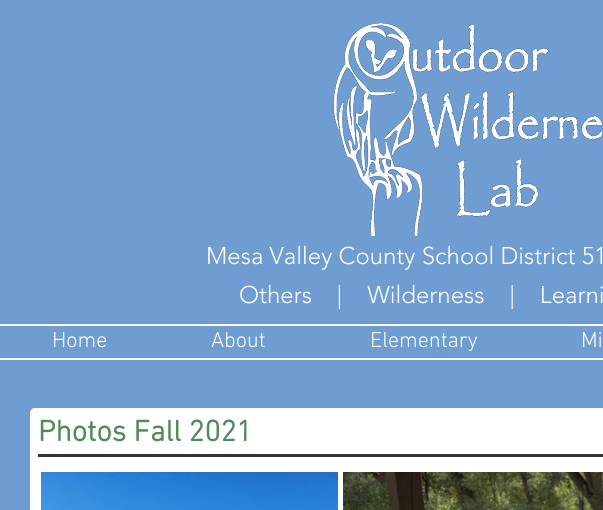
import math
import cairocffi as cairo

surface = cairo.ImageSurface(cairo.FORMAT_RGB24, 603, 510)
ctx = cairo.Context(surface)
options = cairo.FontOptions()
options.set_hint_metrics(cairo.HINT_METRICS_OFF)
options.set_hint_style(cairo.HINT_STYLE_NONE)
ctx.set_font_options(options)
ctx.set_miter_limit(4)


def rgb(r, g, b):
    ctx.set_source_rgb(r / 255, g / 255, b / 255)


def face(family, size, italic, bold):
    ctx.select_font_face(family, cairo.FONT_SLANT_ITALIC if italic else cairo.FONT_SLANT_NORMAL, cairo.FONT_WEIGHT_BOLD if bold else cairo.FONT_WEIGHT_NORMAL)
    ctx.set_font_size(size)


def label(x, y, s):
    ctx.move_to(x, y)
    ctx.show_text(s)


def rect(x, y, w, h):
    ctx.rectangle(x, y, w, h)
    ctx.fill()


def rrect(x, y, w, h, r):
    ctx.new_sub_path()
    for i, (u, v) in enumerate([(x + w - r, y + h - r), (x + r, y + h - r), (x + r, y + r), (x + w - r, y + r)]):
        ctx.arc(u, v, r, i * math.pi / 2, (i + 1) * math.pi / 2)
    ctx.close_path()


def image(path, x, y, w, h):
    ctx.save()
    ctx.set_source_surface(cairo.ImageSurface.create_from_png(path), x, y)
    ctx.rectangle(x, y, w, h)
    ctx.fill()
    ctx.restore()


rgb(112, 157, 209)
ctx.paint()
image('image0.png', 333, 22, 270, 214)
face('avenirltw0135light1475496 Light', 24, 0, 0)
rgb(255, 255, 255)
label(206, 264, 'Mesa Valley County School District 51')
label(239, 303, 'Others    |    Wilderness    |    Learni')
rect(0, 324, 603, 2)
rect(0, 358, 603, 2)
face('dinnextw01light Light', 22, 0, 0)
label(52, 347, 'Home')
label(211, 347, 'About')
label(370, 347, 'Elementary')
label(581, 347, 'Mi')
rrect(30, 408, 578, 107, 5)
ctx.fill()
face('dinnextw01light', 30, 0, 1)
rgb(80, 140, 91)
label(38, 441, 'Photos Fall 2021')
rgb(51, 51, 51)
rect(38, 454, 565, 3)
image('image1.png', 41, 472, 297, 38)
image('image2.png', 343, 472, 260, 38)
surface.write_to_png('render.png')
